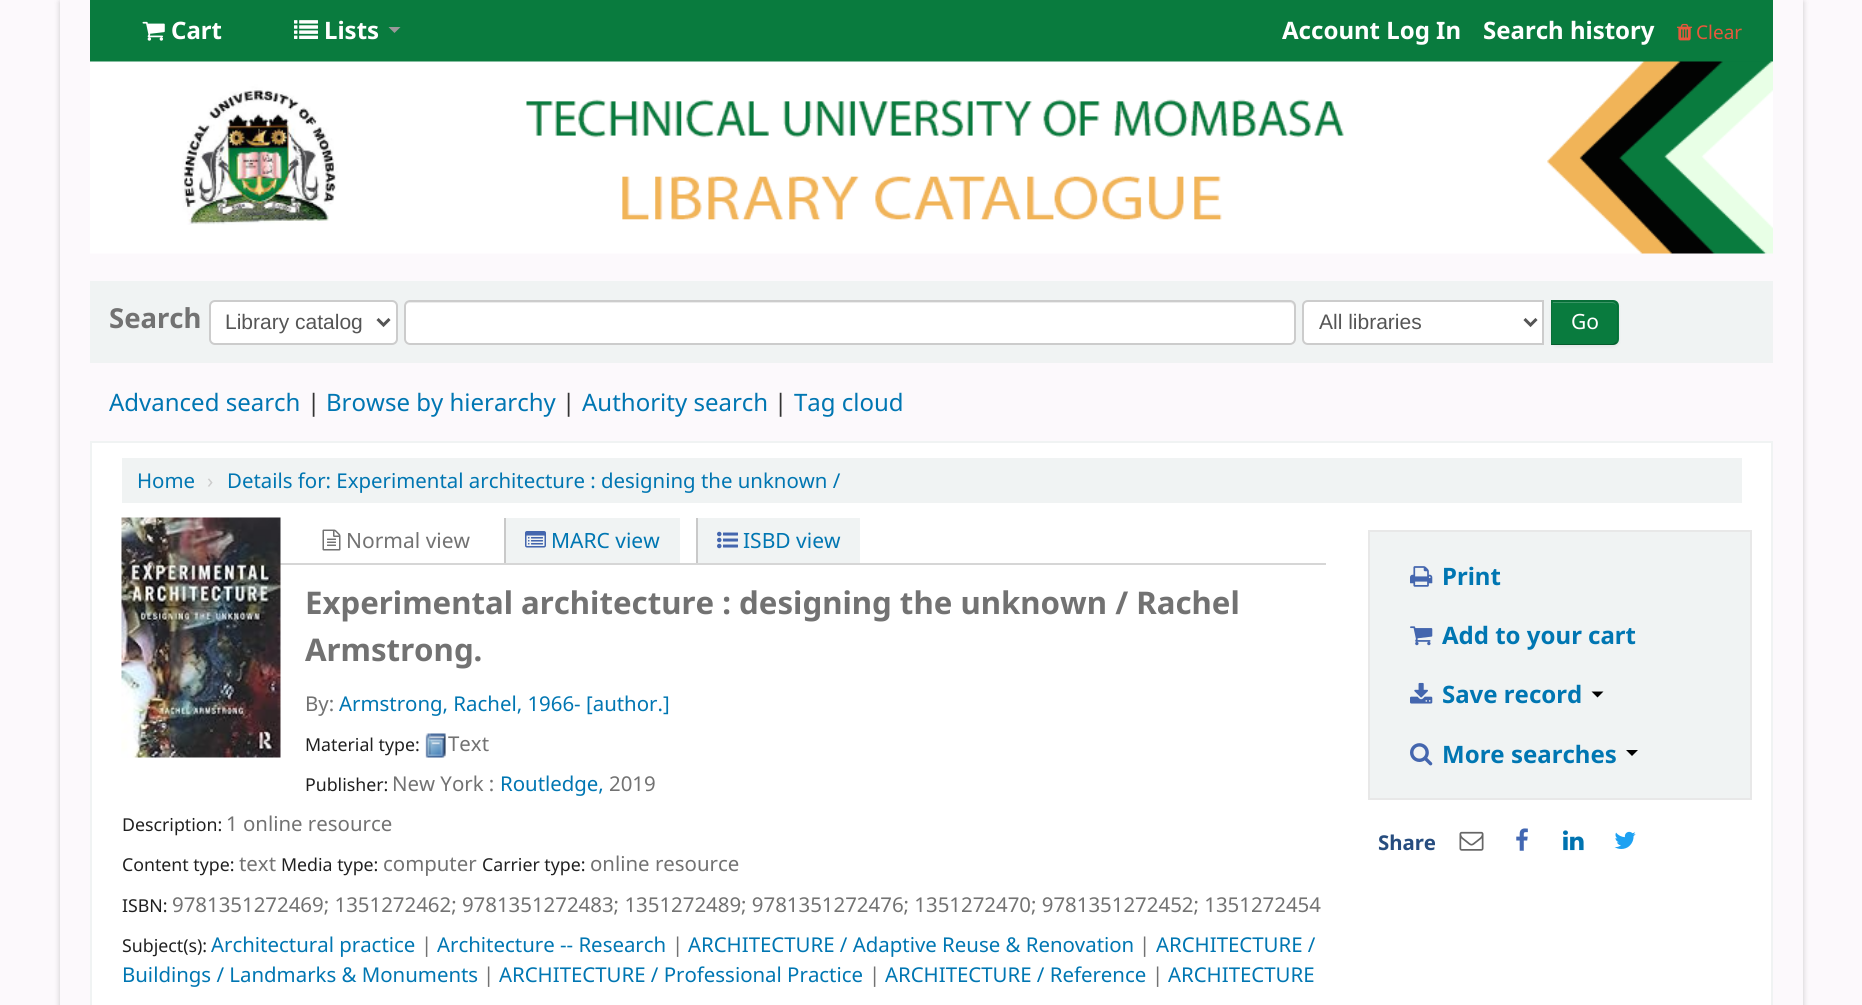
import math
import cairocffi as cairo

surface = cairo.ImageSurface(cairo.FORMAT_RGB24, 1862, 1005)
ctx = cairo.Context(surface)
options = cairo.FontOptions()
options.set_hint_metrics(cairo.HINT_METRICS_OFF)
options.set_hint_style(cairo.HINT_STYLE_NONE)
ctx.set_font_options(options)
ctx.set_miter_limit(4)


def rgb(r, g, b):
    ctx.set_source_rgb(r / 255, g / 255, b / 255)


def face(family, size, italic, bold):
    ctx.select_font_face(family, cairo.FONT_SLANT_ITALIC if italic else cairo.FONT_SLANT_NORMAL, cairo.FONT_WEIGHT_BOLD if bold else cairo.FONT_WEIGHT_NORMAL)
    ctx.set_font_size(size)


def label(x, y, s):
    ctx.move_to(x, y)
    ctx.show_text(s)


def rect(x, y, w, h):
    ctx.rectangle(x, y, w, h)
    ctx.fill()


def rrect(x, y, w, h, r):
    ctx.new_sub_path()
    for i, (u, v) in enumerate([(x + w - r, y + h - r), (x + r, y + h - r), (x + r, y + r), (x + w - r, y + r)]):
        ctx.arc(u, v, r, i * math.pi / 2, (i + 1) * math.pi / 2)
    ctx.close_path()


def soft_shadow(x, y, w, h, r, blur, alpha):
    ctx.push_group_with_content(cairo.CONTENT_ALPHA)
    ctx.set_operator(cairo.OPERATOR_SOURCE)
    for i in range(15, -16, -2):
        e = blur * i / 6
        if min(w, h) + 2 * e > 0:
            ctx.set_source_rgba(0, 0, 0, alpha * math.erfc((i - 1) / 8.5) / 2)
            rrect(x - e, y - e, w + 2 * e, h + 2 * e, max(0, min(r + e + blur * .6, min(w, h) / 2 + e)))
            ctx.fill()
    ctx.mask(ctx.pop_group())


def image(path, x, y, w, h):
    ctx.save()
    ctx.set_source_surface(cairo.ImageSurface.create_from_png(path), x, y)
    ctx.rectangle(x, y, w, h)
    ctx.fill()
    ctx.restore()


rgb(252, 249, 252)
ctx.paint()
ctx.save()
ctx.set_fill_rule(cairo.FILL_RULE_EVEN_ODD)
ctx.new_path()
ctx.move_to(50, 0)
ctx.line_to(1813, 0)
ctx.line_to(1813, 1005)
ctx.line_to(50, 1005)
ctx.close_path()
ctx.move_to(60, 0)
ctx.line_to(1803, 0)
ctx.line_to(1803, 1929)
ctx.line_to(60, 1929)
ctx.close_path()
ctx.clip()
rgb(0, 0, 0)
soft_shadow(60, 2, 1743, 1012, 0, 3, 0.2)
ctx.restore()
rgb(9, 123, 62)
rect(90, 0, 1683, 62)
image('image0.png', 142, 21, 23, 20)
face('Noto Sans', 24, 0, 1)
rgb(255, 255, 255)
label(171, 39, 'Cart')
image('image1.png', 294, 20, 24, 19)
label(324, 39, 'Lists')
rgb(153, 153, 153)
ctx.new_path()
ctx.move_to(388.5, 27)
ctx.line_to(400.5, 27)
ctx.line_to(394.5, 33)
ctx.close_path()
ctx.fill()
rgb(255, 255, 255)
label(1282, 39, 'Account Log In')
label(1483, 39, 'Search history')
image('image2.png', 1677, 23, 16, 18)
face('Noto Sans', 19, 0, 0)
rgb(232, 88, 60)
label(1696, 39, 'Clear')
image('image3.png', 90, 61, 1683, 193)
rgb(240, 243, 243)
rect(90, 281, 1683, 82)
face('Noto Sans', 27.5, 0, 1)
rgb(114, 114, 114)
label(109, 328, 'Search')
rgb(255, 255, 255)
rrect(210, 301, 187, 43, 5)
ctx.fill_preserve()
rgb(204, 204, 204)
ctx.stroke()
ctx.new_path()
ctx.move_to(377.5, 319)
ctx.line_to(383.5, 325)
ctx.line_to(389.5, 319)
rgb(85, 85, 85)
ctx.set_line_width(3)
ctx.stroke()
face('Liberation Sans', 21, 0, 0)
label(225, 329, 'Library catalog')
rgb(255, 255, 255)
rrect(404, 300, 892, 45, 6)
ctx.fill()
rgb(236, 236, 236)
ctx.new_path()
ctx.move_to(410, 303)
ctx.line_to(1290, 303)
ctx.curve_to(1292, 303, 1294, 305, 1294, 308)
ctx.line_to(1294, 340)
ctx.line_to(1293, 343)
ctx.curve_to(1294, 342, 1295, 340, 1295, 339)
ctx.line_to(1295, 307)
ctx.curve_to(1295, 304, 1293, 302, 1290, 302)
ctx.line_to(410, 302)
ctx.curve_to(407, 302, 405, 304, 405, 307)
ctx.line_to(405, 308)
ctx.curve_to(405, 305, 407, 303, 410, 303)
ctx.close_path()
ctx.fill()
rrect(405, 301, 890, 43, 5)
rgb(204, 204, 204)
ctx.set_line_width(2)
ctx.stroke()
rgb(255, 255, 255)
ctx.new_path()
ctx.move_to(1308, 301)
ctx.line_to(1543, 301)
ctx.line_to(1543, 344)
ctx.line_to(1308, 344)
ctx.curve_to(1305, 344, 1303, 342, 1303, 339)
ctx.line_to(1303, 306)
ctx.curve_to(1303, 303, 1305, 301, 1308, 301)
ctx.close_path()
ctx.fill_preserve()
rgb(204, 204, 204)
ctx.stroke()
ctx.new_path()
ctx.move_to(1524.5, 319)
ctx.line_to(1530.5, 325)
ctx.line_to(1536.5, 319)
rgb(85, 85, 85)
ctx.set_line_width(3)
ctx.stroke()
label(1319, 329, 'All libraries')
rgb(0, 0, 0)
soft_shadow(1551, 302, 68, 45, 6, 1.5, 0.05)
rgb(9, 123, 62)
ctx.new_path()
ctx.move_to(1551, 300)
ctx.line_to(1613, 300)
ctx.curve_to(1616.5, 300, 1619, 302.5, 1619, 306)
ctx.line_to(1619, 339)
ctx.curve_to(1619, 342.5, 1616.5, 345, 1613, 345)
ctx.line_to(1551, 345)
ctx.close_path()
ctx.fill()
rgb(58, 149, 101)
ctx.new_path()
ctx.move_to(1553, 302)
ctx.line_to(1553, 303)
ctx.line_to(1612, 303)
ctx.curve_to(1615, 303, 1617, 305, 1617, 308)
ctx.curve_to(1617, 305, 1615, 302, 1612, 302)
ctx.close_path()
ctx.fill()
ctx.set_source_rgba(0, 0, 0, 0.1)
ctx.new_path()
ctx.move_to(1551, 300)
ctx.line_to(1553, 302)
ctx.line_to(1612, 302)
ctx.curve_to(1613, 302, 1615, 302, 1615, 303)
ctx.line_to(1617, 302)
ctx.curve_to(1616, 301, 1614, 300, 1612, 300)
ctx.close_path()
ctx.fill()
ctx.new_path()
ctx.move_to(1617, 302)
ctx.curve_to(1618, 303, 1618, 305, 1618, 306)
ctx.line_to(1618, 339)
ctx.curve_to(1618, 340, 1618, 342, 1617, 343)
ctx.line_to(1616, 342)
ctx.curve_to(1617, 341, 1617, 340, 1617, 339)
ctx.line_to(1617, 306)
ctx.curve_to(1617, 305, 1616, 304, 1615, 303)
ctx.close_path()
ctx.fill()
ctx.set_source_rgba(0, 0, 0, 0.25)
ctx.new_path()
ctx.move_to(1612, 345)
ctx.curve_to(1614, 345, 1616, 344, 1617, 343)
ctx.line_to(1616, 342)
ctx.line_to(1613, 344)
ctx.line_to(1552, 344)
ctx.line_to(1551, 345)
ctx.close_path()
ctx.fill()
ctx.set_source_rgba(0, 0, 0, 0.1)
ctx.new_path()
ctx.move_to(1551, 300)
ctx.line_to(1551, 345)
ctx.line_to(1552, 344)
ctx.line_to(1552, 302)
ctx.line_to(1553, 302)
ctx.close_path()
ctx.fill()
face('Noto Sans', 21, 0, 0)
rgb(255, 255, 255)
label(1571, 329, 'Go')
face('Noto Sans', 24, 0, 0)
rgb(0, 118, 178)
label(109, 411, 'Advanced search')
rgb(51, 51, 51)
label(307, 411, '|')
rgb(0, 118, 178)
label(326, 411, 'Browse by hierarchy')
rgb(51, 51, 51)
label(562, 411, '|')
rgb(0, 118, 178)
label(582, 411, 'Authority search')
rgb(51, 51, 51)
label(774, 411, '|')
rgb(0, 118, 178)
label(794, 411, 'Tag cloud')
rgb(255, 255, 255)
ctx.rectangle(91, 442, 1681, 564)
ctx.fill_preserve()
rgb(240, 243, 243)
ctx.set_line_width(2)
ctx.stroke()
rect(122, 458, 1620, 45)
face('Noto Sans', 20.4, 0, 0)
rgb(0, 118, 178)
label(137, 488, 'Home')
rgb(204, 204, 204)
label(207, 488, '›')
rgb(0, 118, 178)
label(227, 488, 'Details for: Experimental architecture : designing the unknown /')
rgb(214, 214, 214)
rect(280, 563, 1046, 2)
image('image4.png', 121, 517, 160, 241)
image('image5.png', 322, 529, 19, 22)
face('Noto Sans', 21, 0, 0)
rgb(114, 114, 114)
label(346, 548, 'Normal view')
rgb(240, 243, 243)
rect(506, 518, 174, 45)
rgb(201, 201, 201)
rect(504, 518, 2, 45)
image('image6.png', 525, 531, 21, 17)
rgb(0, 118, 178)
label(551, 548, 'MARC view')
rgb(240, 243, 243)
rect(698, 518, 162, 45)
rgb(201, 201, 201)
rect(696, 518, 2, 45)
image('image7.png', 717, 531, 21, 18)
rgb(0, 118, 178)
label(743, 548, 'ISBD view')
face('Noto Sans', 31.2, 0, 1)
rgb(114, 114, 114)
label(305, 614, 'Experimental architecture : designing the unknown / Rachel')
label(305, 661, 'Armstrong.')
face('Noto Sans', 20.4, 0, 0)
label(305, 711, 'By:')
rgb(0, 118, 178)
label(339, 711, 'Armstrong, Rachel, 1966- [author.]')
face('Noto Sans', 17.75, 0, 0)
rgb(32, 32, 32)
label(305, 751, 'Material type:')
image('image8.png', 425, 733, 21, 25)
face('Noto Sans', 20.4, 0, 0)
rgb(114, 114, 114)
label(448, 751, 'Text')
face('Noto Sans', 17.75, 0, 0)
rgb(32, 32, 32)
label(305, 791, 'Publisher:')
face('Noto Sans', 20.4, 0, 0)
rgb(114, 114, 114)
label(392, 791, 'New York :')
rgb(0, 118, 178)
label(500, 791, 'Routledge,')
rgb(114, 114, 114)
label(609, 791, '2019')
face('Noto Sans', 17.75, 0, 0)
rgb(32, 32, 32)
label(122, 831, 'Description:')
face('Noto Sans', 20.4, 0, 0)
rgb(114, 114, 114)
label(226, 831, '1 online resource')
face('Noto Sans', 17.75, 0, 0)
rgb(32, 32, 32)
label(122, 871, 'Content type:')
face('Noto Sans', 20.4, 0, 0)
rgb(114, 114, 114)
label(239, 871, 'text')
face('Noto Sans', 17.75, 0, 0)
rgb(32, 32, 32)
label(281, 871, 'Media type:')
face('Noto Sans', 20.4, 0, 0)
rgb(114, 114, 114)
label(383, 871, 'computer')
face('Noto Sans', 17.75, 0, 0)
rgb(32, 32, 32)
label(482, 871, 'Carrier type:')
face('Noto Sans', 20.4, 0, 0)
rgb(114, 114, 114)
label(590, 871, 'online resource')
face('Noto Sans', 17.75, 0, 0)
rgb(32, 32, 32)
label(122, 912, 'ISBN:')
face('Noto Sans', 20.4, 0, 0)
rgb(114, 114, 114)
label(172, 912, '9781351272469; 1351272462; 9781351272483; 1351272489; 9781351272476; 1351272470; 9781351272452; 1351272454')
face('Noto Sans', 17.75, 0, 0)
rgb(32, 32, 32)
label(122, 952, 'Subject(s):')
face('Noto Sans', 20.4, 0, 0)
rgb(0, 118, 178)
label(211, 952, 'Architectural practice')
rgb(114, 114, 114)
label(421, 952, '|')
rgb(0, 118, 178)
label(437, 952, 'Architecture -- Research')
rgb(114, 114, 114)
label(672, 952, '|')
rgb(0, 118, 178)
label(688, 952, 'ARCHITECTURE / Adaptive Reuse & Renovation')
rgb(114, 114, 114)
label(1139, 952, '|')
rgb(0, 118, 178)
label(1156, 952, 'ARCHITECTURE /')
label(122, 982, 'Buildings / Landmarks & Monuments')
rgb(114, 114, 114)
label(483, 982, '|')
rgb(0, 118, 178)
label(499, 982, 'ARCHITECTURE / Professional Practice')
rgb(114, 114, 114)
label(869, 982, '|')
rgb(0, 118, 178)
label(885, 982, 'ARCHITECTURE / Reference')
rgb(114, 114, 114)
label(1152, 982, '|')
rgb(0, 118, 178)
label(1168, 982, 'ARCHITECTURE')
rgb(240, 243, 243)
ctx.rectangle(1369, 531, 382, 268)
ctx.fill_preserve()
rgb(232, 232, 232)
ctx.stroke()
image('image9.png', 1410, 566, 23, 21)
face('Noto Sans', 24, 0, 1)
rgb(0, 118, 178)
label(1442, 585, 'Print')
image('image10.png', 1410, 626, 23, 20)
label(1442, 644, 'Add to your cart')
image('image11.png', 1410, 682, 23, 22)
label(1442, 703, 'Save record')
rgb(0, 0, 0)
ctx.new_path()
ctx.move_to(1591.5, 691.5)
ctx.line_to(1603.5, 691.5)
ctx.line_to(1597.5, 697.5)
ctx.close_path()
ctx.fill()
image('image12.png', 1410, 743, 23, 23)
rgb(0, 118, 178)
label(1442, 763, 'More searches')
rgb(0, 0, 0)
ctx.new_path()
ctx.move_to(1626, 750)
ctx.line_to(1638, 750)
ctx.line_to(1632, 756)
ctx.close_path()
ctx.fill()
face('Noto Sans', 20.4, 0, 1)
rgb(39, 77, 127)
label(1378, 850, 'Share')
image('image13.png', 1459, 831, 25, 20)
image('image14.png', 1516, 828, 12, 23)
image('image15.png', 1563, 830, 21, 21)
image('image16.png', 1614, 831, 22, 18)
surface.write_to_png('render.png')
